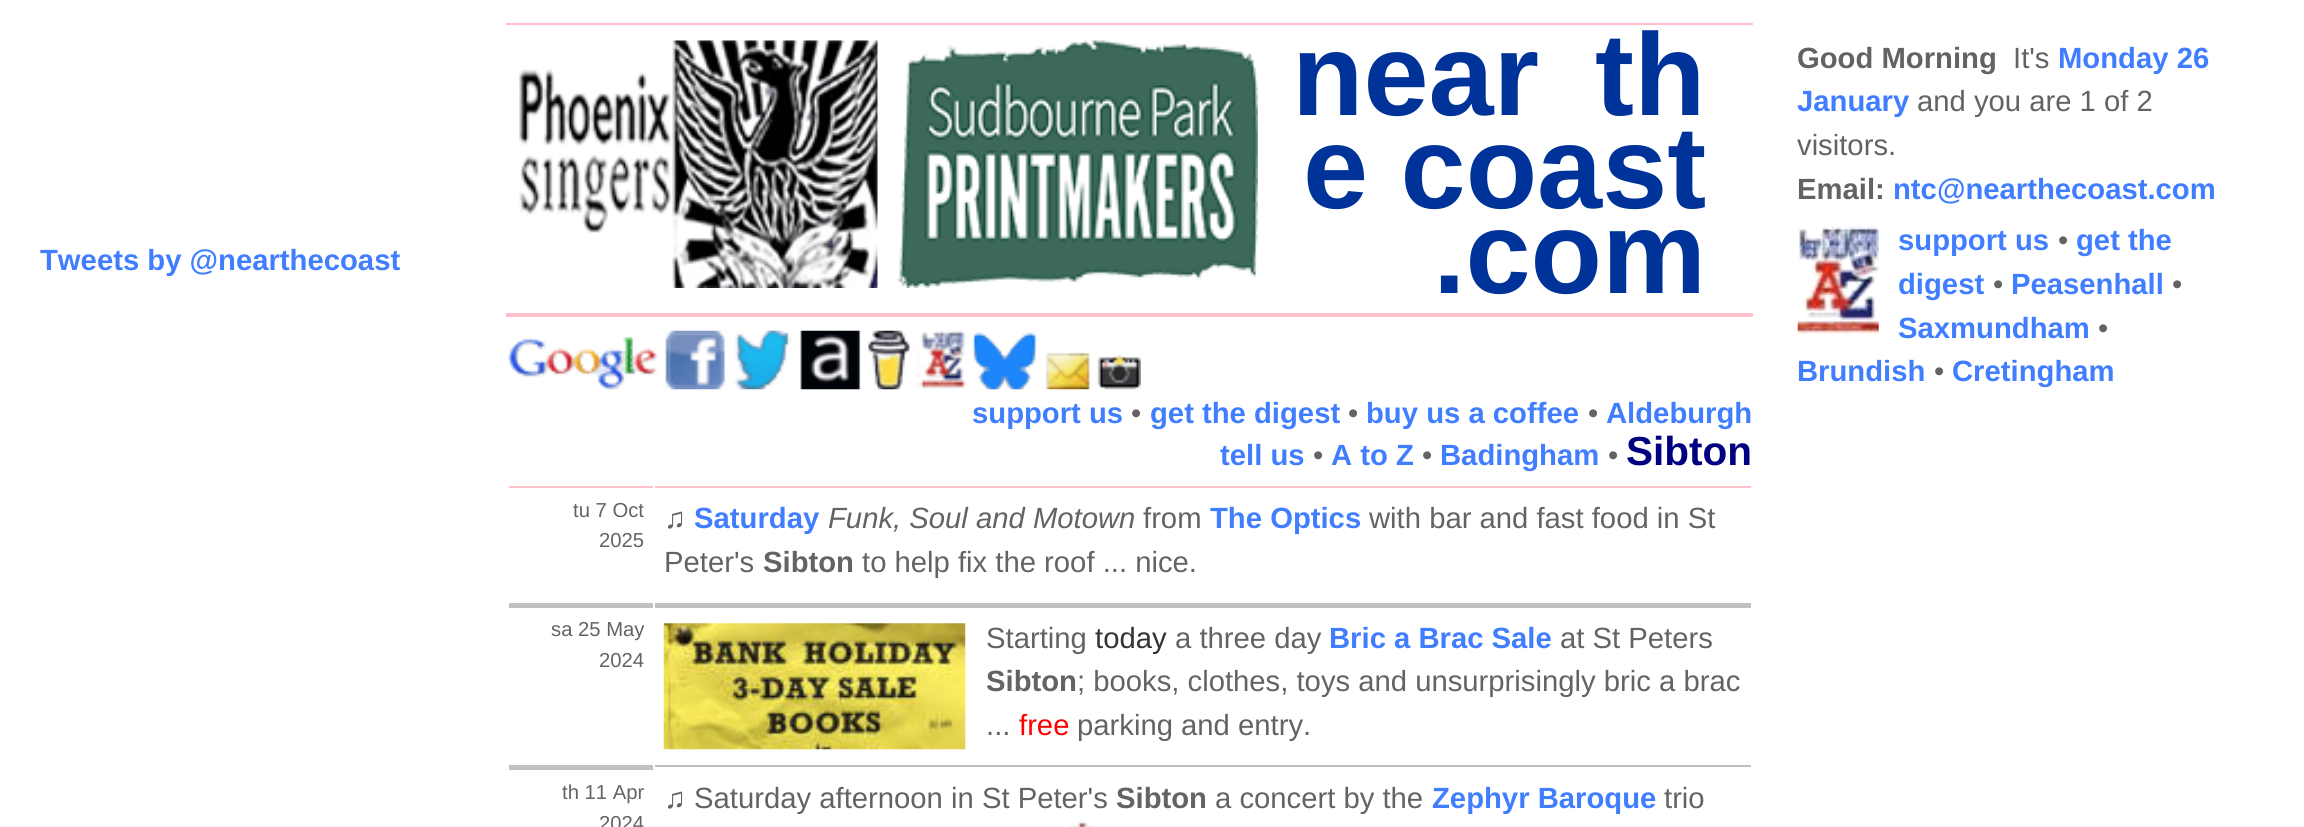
import math
import cairocffi as cairo

surface = cairo.ImageSurface(cairo.FORMAT_RGB24, 2304, 827)
ctx = cairo.Context(surface)
options = cairo.FontOptions()
options.set_hint_metrics(cairo.HINT_METRICS_OFF)
options.set_hint_style(cairo.HINT_STYLE_NONE)
ctx.set_font_options(options)
ctx.set_miter_limit(4)


def rgb(r, g, b):
    ctx.set_source_rgb(r / 255, g / 255, b / 255)


def face(family, size, italic, bold):
    ctx.select_font_face(family, cairo.FONT_SLANT_ITALIC if italic else cairo.FONT_SLANT_NORMAL, cairo.FONT_WEIGHT_BOLD if bold else cairo.FONT_WEIGHT_NORMAL)
    ctx.set_font_size(size)


def label(x, y, s):
    ctx.move_to(x, y)
    ctx.show_text(s)


def rect(x, y, w, h):
    ctx.rectangle(x, y, w, h)
    ctx.fill()


def image(path, x, y, w, h):
    ctx.save()
    ctx.set_source_surface(cairo.ImageSurface.create_from_png(path), x, y)
    ctx.rectangle(x, y, w, h)
    ctx.fill()
    ctx.restore()


rgb(255, 255, 255)
ctx.paint()
face('Liberation Sans', 29.25, 0, 1)
rgb(64, 126, 255)
label(40, 270, 'Tweets by @nearthecoast')
rgb(255, 192, 203)
rect(506, 23, 1247, 2)
rect(506, 313, 1247, 4)
image('image0.png', 519, 40, 359, 248)
image('image1.png', 897, 40, 361, 248)
face('Liberation Sans', 117, 0, 1)
rgb(0, 51, 153)
label(1292, 115, 'near  th')
label(1303, 208, 'e coast')
label(1433, 293, '.com')
image('image2.png', 508, 330, 633, 60)
face('Liberation Sans', 29.25, 0, 1)
rgb(64, 126, 255)
label(972, 423, 'support us')
face('Liberation Sans', 29.25, 0, 0)
rgb(99, 99, 99)
label(1131, 423, '•')
face('Liberation Sans', 29.25, 0, 1)
rgb(64, 126, 255)
label(1150, 423, 'get the digest')
face('Liberation Sans', 29.25, 0, 0)
rgb(99, 99, 99)
label(1348, 423, '•')
face('Liberation Sans', 29.25, 0, 1)
rgb(64, 126, 255)
label(1366, 423, 'buy us a coffee')
face('Liberation Sans', 29.25, 0, 0)
rgb(99, 99, 99)
label(1588, 423, '•')
face('Liberation Sans', 29.25, 0, 1)
rgb(64, 126, 255)
label(1606, 423, 'Aldeburgh')
label(1220, 465, 'tell us')
face('Liberation Sans', 29.25, 0, 0)
rgb(99, 99, 99)
label(1313, 465, '•')
face('Liberation Sans', 29.25, 0, 1)
rgb(64, 126, 255)
label(1331, 465, 'A to Z')
face('Liberation Sans', 29.25, 0, 0)
rgb(99, 99, 99)
label(1422, 465, '•')
face('Liberation Sans', 29.25, 0, 1)
rgb(64, 126, 255)
label(1440, 465, 'Badingham')
face('Liberation Sans', 29.25, 0, 0)
rgb(99, 99, 99)
label(1608, 465, '•')
face('Liberation Sans', 40.5, 0, 1)
rgb(0, 0, 128)
label(1626, 465, 'Sibton')
rgb(255, 192, 203)
rect(509, 486, 144, 2)
face('Liberation Sans', 20.25, 0, 0)
rgb(99, 99, 99)
label(573, 517, 'tu 7 Oct')
label(599, 547, '2025')
rgb(255, 192, 203)
rect(655, 486, 1096, 2)
face('Liberation Sans', 29.25, 0, 0)
rgb(99, 99, 99)
label(664, 528, '♫')
face('Liberation Sans', 29.25, 0, 1)
rgb(64, 126, 255)
label(694, 528, 'Saturday')
face('Liberation Sans', 29.25, 1, 0)
rgb(99, 99, 99)
label(828, 528, 'Funk, Soul and Motown')
face('Liberation Sans', 29.25, 0, 0)
label(1143, 528, 'from')
face('Liberation Sans', 29.25, 0, 1)
rgb(64, 126, 255)
label(1210, 528, 'The Optics')
face('Liberation Sans', 29.25, 0, 0)
rgb(99, 99, 99)
label(1369, 528, 'with bar and fast food in St')
label(664, 572, 'Peter\'s')
face('Liberation Sans', 29.25, 0, 1)
label(763, 572, 'Sibton')
face('Liberation Sans', 29.25, 0, 0)
label(862, 572, 'to help fix the roof ... nice.')
rgb(192, 192, 192)
rect(509, 603, 144, 5)
face('Liberation Sans', 20.25, 0, 0)
rgb(99, 99, 99)
label(551, 636, 'sa 25 May')
label(599, 667, '2024')
rgb(192, 192, 192)
rect(655, 603, 1096, 5)
image('image3.png', 663, 623, 303, 127)
face('Liberation Sans', 29.25, 0, 0)
rgb(99, 99, 99)
label(986, 648, 'Starting')
rgb(51, 51, 51)
label(1095, 648, 'today')
rgb(99, 99, 99)
label(1175, 648, 'a three day')
face('Liberation Sans', 29.25, 0, 1)
rgb(64, 126, 255)
label(1329, 648, 'Bric a Brac Sale')
face('Liberation Sans', 29.25, 0, 0)
rgb(99, 99, 99)
label(1560, 648, 'at St Peters')
face('Liberation Sans', 29.25, 0, 1)
label(986, 691, 'Sibton')
face('Liberation Sans', 29.25, 0, 0)
label(1077, 691, '; books, clothes, toys and unsurprisingly bric a brac')
label(986, 735, '...')
rgb(255, 0, 0)
label(1019, 735, 'free')
rgb(99, 99, 99)
label(1077, 735, 'parking and entry.')
rgb(192, 192, 192)
rect(509, 765, 144, 5)
face('Liberation Sans', 20.25, 0, 0)
rgb(99, 99, 99)
label(562, 799, 'th 11 Apr')
label(599, 830, '2024')
rgb(192, 192, 192)
rect(655, 765, 1096, 2)
face('Liberation Sans', 29.25, 0, 0)
rgb(99, 99, 99)
label(664, 808, '♫ Saturday afternoon in St Peter\'s')
face('Liberation Sans', 29.25, 0, 1)
label(1116, 808, 'Sibton')
face('Liberation Sans', 29.25, 0, 0)
label(1215, 808, 'a concert by the')
face('Liberation Sans', 29.25, 0, 1)
rgb(64, 126, 255)
label(1432, 808, 'Zephyr Baroque')
face('Liberation Sans', 29.25, 0, 0)
rgb(99, 99, 99)
label(1664, 808, 'trio')
image('image4.png', 1069, 821, 27, 6)
face('Liberation Sans', 29.25, 0, 1)
label(1797, 68, 'Good Morning')
face('Liberation Sans', 29.25, 0, 0)
label(2013, 68, 'It\'s')
face('Liberation Sans', 29.25, 0, 1)
rgb(64, 126, 255)
label(2058, 68, 'Monday 26')
label(1797, 111, 'January')
face('Liberation Sans', 29.25, 0, 0)
rgb(99, 99, 99)
label(1917, 111, 'and you are 1 of 2')
label(1797, 155, 'visitors.')
face('Liberation Sans', 29.25, 0, 1)
label(1797, 199, 'Email:')
rgb(64, 126, 255)
label(1893, 199, 'ntc@nearthecoast.com')
image('image5.png', 1797, 226, 82, 108)
label(1898, 250, 'support us')
face('Liberation Sans', 29.25, 0, 0)
rgb(99, 99, 99)
label(2058, 250, '•')
face('Liberation Sans', 29.25, 0, 1)
rgb(64, 126, 255)
label(2076, 250, 'get the')
label(1898, 294, 'digest')
face('Liberation Sans', 29.25, 0, 0)
rgb(99, 99, 99)
label(1993, 294, '•')
face('Liberation Sans', 29.25, 0, 1)
rgb(64, 126, 255)
label(2011, 294, 'Peasenhall')
face('Liberation Sans', 29.25, 0, 0)
rgb(99, 99, 99)
label(2172, 294, '•')
face('Liberation Sans', 29.25, 0, 1)
rgb(64, 126, 255)
label(1898, 338, 'Saxmundham')
face('Liberation Sans', 29.25, 0, 0)
rgb(99, 99, 99)
label(2098, 338, '•')
face('Liberation Sans', 29.25, 0, 1)
rgb(64, 126, 255)
label(1797, 381, 'Brundish')
face('Liberation Sans', 29.25, 0, 0)
rgb(99, 99, 99)
label(1934, 381, '•')
face('Liberation Sans', 29.25, 0, 1)
rgb(64, 126, 255)
label(1952, 381, 'Cretingham')
surface.write_to_png('render.png')
